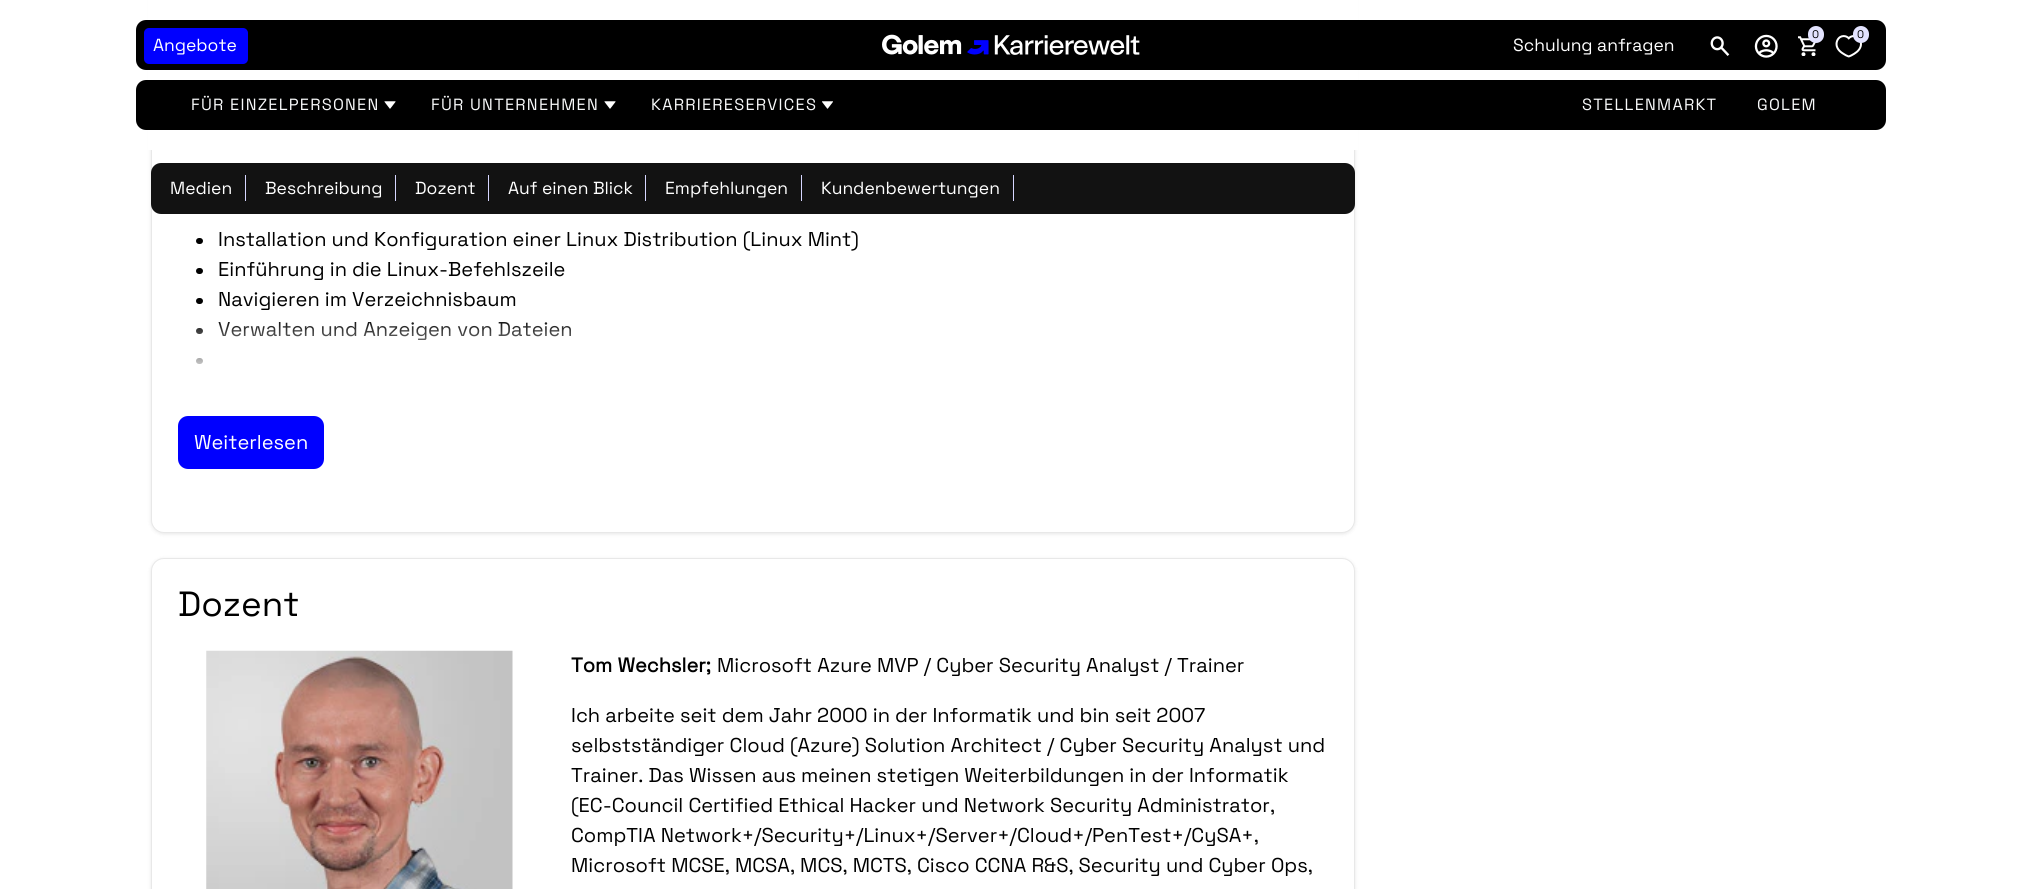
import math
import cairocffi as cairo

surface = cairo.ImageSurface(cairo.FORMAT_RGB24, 2022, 889)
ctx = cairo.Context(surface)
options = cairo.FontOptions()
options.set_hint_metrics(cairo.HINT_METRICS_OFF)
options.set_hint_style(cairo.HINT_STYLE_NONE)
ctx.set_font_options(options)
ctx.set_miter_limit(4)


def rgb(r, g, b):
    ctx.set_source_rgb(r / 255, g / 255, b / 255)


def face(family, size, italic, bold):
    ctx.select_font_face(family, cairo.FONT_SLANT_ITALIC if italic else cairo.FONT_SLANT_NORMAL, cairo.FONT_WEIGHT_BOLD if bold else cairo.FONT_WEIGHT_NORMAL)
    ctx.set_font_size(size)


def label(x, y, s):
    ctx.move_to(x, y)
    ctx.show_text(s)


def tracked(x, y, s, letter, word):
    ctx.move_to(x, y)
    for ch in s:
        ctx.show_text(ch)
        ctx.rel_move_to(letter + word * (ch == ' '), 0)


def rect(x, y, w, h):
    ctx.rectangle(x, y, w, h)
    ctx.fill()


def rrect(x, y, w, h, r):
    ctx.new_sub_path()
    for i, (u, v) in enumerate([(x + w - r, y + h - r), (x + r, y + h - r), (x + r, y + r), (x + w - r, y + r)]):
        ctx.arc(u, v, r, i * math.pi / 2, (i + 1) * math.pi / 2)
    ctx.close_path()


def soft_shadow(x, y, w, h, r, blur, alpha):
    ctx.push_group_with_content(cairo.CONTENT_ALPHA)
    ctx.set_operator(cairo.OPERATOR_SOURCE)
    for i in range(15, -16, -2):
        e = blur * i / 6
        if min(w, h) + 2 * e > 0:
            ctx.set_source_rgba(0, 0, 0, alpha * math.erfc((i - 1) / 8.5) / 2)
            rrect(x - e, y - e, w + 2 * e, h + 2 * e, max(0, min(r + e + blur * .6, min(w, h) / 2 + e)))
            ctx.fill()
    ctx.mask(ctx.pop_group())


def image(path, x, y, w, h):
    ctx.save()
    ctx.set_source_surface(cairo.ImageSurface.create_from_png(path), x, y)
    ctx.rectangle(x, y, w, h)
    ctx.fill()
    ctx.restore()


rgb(255, 255, 255)
ctx.paint()
rgb(0, 0, 0)
soft_shadow(151, -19, 1204, 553, 13, 2, 0.1)
rgb(255, 255, 255)
rrect(151.5, -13.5, 1203, 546, 12.5)
ctx.fill_preserve()
rgb(232, 232, 232)
ctx.set_line_width(1)
ctx.stroke()
rgb(255, 255, 255)
rect(148, 0, 1210, 150)
rgb(0, 0, 0)
rrect(136, 20, 1750, 50, 10)
ctx.fill()
rgb(0, 0, 255)
rrect(144, 28, 104, 36, 5)
ctx.fill()
face('Space Grotesk', 17.5, 0, 0)
rgb(255, 255, 255)
label(153, 51, 'Angebote')
image('image0.png', 882, 34, 258, 21)
label(1513, 51, 'Schulung anfragen')
image('image1.png', 1710, 36, 20, 20)
image('image2.png', 1754, 34, 24, 24)
image('image3.png', 1798, 36, 18, 20)
rgb(227, 227, 255)
rrect(1808, 26, 16, 17, 8)
ctx.fill()
face('Space Grotesk', 11, 0, 0)
rgb(0, 0, 0)
label(1812, 38, '0')
image('image4.png', 1835, 35, 27, 23)
rgb(227, 227, 255)
rrect(1853, 26, 16, 17, 8)
ctx.fill()
rgb(0, 0, 0)
label(1857, 38, '0')
rrect(136, 80, 1750, 50, 10)
ctx.fill()
face('Space Grotesk', 16.25, 0, 0)
rgb(248, 249, 250)
tracked(191, 110, 'FÜR EINZELPERSONEN', 1.25, 0)
image('image5.png', 384, 101, 12, 8)
tracked(431, 110, 'FÜR UNTERNEHMEN', 1.25, 0)
image('image5.png', 604, 101, 12, 8)
tracked(651, 110, 'KARRIERESERVICES', 1.25, 0)
image('image6.png', 822, 101, 11, 8)
tracked(1582, 110, 'STELLENMARKT', 1.25, 0)
tracked(1757, 110, 'GOLEM', 1.25, 0)
rgb(18, 18, 18)
rrect(151, 163, 1204, 51, 10)
ctx.fill()
rgb(214, 214, 255)
rect(245, 175, 1, 26)
face('Space Grotesk', 17.5, 0, 0)
rgb(255, 255, 255)
label(170, 194, 'Medien')
rgb(214, 214, 255)
rect(395, 175, 1, 26)
rgb(255, 255, 255)
label(265, 194, 'Beschreibung')
rgb(214, 214, 255)
rect(488, 175, 1, 26)
rgb(255, 255, 255)
label(415, 194, 'Dozent')
rgb(214, 214, 255)
rect(645, 175, 1, 26)
rgb(255, 255, 255)
label(508, 194, 'Auf einen Blick')
rgb(214, 214, 255)
rect(801, 175, 1, 26)
rgb(255, 255, 255)
label(665, 194, 'Empfehlungen')
rgb(214, 214, 255)
rect(1013, 175, 1, 26)
rgb(255, 255, 255)
label(821, 194, 'Kundenbewertungen')
rgb(0, 0, 0)
rrect(196, 238, 7, 6, 3)
ctx.fill()
face('Space Grotesk', 20, 0, 0)
label(218, 246, 'Installation und Konfiguration einer Linux Distribution (Linux Mint)')
rrect(196, 268, 7, 6, 3)
ctx.fill()
label(218, 276, 'Einführung in die Linux-Befehlszeile')
rrect(196, 298, 7, 6, 3)
ctx.fill()
label(218, 306, 'Navigieren im Verzeichnisbaum')
rrect(196, 328, 7, 6, 3)
ctx.fill()
label(218, 336, 'Verwalten und Anzeigen von Dateien')
rrect(196, 358, 7, 6, 3)
ctx.fill()
gradient = cairo.LinearGradient(753, 316, 753, 379)
gradient.add_color_stop_rgba(0, 1, 1, 1, 0)
gradient.add_color_stop_rgba(1, 1, 1, 1, 1)
ctx.set_source(gradient)
rect(196, 322, 375, 42)
rgb(0, 0, 255)
rrect(178, 416, 146, 53, 10)
ctx.fill()
rgb(255, 255, 255)
label(194, 449, 'Weiterlesen')
rgb(0, 0, 0)
soft_shadow(151, 559, 1204, 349, 13, 2, 0.1)
rgb(255, 255, 255)
rrect(151.5, 558.5, 1203, 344, 12.5)
ctx.fill_preserve()
rgb(232, 232, 232)
ctx.stroke()
face('Space Grotesk', 35, 0, 0)
rgb(0, 0, 0)
label(178, 616, 'Dozent')
image('image7.png', 206, 650, 307, 239)
face('Space Grotesk', 20, 0, 1)
label(571, 672, 'Tom Wechsler;')
face('Space Grotesk', 20, 0, 0)
label(717, 672, 'Microsoft Azure MVP / Cyber Security Analyst / Trainer')
label(571, 722, 'Ich arbeite seit dem Jahr 2000 in der Informatik und bin seit 2007')
label(571, 752, 'selbstständiger Cloud (Azure) Solution Architect / Cyber Security Analyst und')
label(571, 782, 'Trainer. Das Wissen aus meinen stetigen Weiterbildungen in der Informatik')
label(571, 812, '(EC-Council Certified Ethical Hacker und Network Security Administrator,')
label(571, 842, 'CompTIA Network+/Security+/Linux+/Server+/Cloud+/PenTest+/CySA+,')
label(571, 872, 'Microsoft MCSE, MCSA, MCS, MCTS, Cisco CCNA R&S, Security und Cyber Ops,')
surface.write_to_png('render.png')
